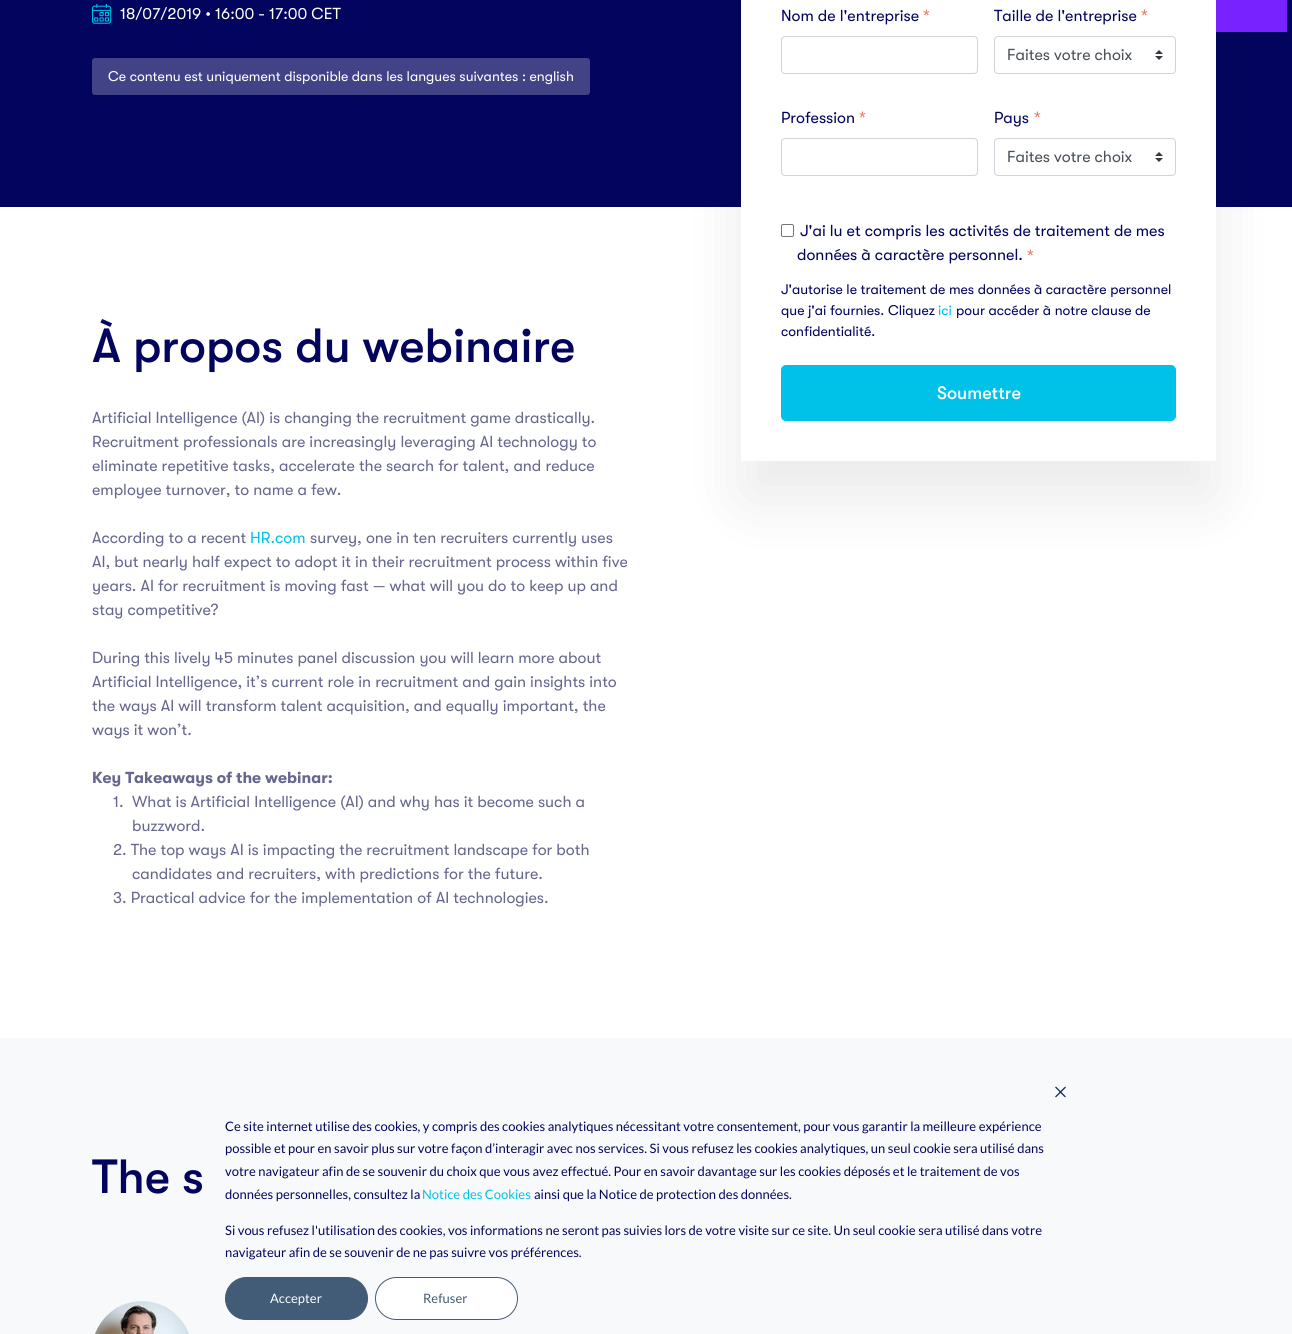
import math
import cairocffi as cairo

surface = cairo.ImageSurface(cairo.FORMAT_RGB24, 1292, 1334)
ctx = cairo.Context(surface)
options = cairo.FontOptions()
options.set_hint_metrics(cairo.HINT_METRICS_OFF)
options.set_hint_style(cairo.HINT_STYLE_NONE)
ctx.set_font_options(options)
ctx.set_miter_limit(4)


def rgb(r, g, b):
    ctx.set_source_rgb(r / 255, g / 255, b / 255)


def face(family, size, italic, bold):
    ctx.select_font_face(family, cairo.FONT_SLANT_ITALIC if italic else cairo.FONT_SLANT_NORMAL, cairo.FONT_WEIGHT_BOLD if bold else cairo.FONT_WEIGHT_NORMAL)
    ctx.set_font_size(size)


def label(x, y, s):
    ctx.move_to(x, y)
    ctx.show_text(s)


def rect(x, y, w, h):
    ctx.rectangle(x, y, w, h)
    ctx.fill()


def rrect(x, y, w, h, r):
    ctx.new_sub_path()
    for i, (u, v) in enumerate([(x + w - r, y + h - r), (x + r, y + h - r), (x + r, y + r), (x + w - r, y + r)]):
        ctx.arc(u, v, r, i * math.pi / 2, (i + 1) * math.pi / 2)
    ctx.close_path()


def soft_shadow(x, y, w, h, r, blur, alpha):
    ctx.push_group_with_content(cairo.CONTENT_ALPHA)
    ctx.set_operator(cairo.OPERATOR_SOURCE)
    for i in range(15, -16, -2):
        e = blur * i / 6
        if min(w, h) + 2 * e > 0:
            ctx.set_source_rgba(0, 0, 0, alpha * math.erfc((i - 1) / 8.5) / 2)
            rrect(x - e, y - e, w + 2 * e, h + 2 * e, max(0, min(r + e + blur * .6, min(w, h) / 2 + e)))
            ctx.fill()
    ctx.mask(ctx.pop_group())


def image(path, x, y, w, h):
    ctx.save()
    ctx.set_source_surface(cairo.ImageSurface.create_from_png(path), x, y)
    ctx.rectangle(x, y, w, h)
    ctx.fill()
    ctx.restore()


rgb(255, 255, 255)
ctx.paint()
rgb(3, 4, 94)
rect(0, 0, 1292, 207)
image('image0.png', 92, 4, 20, 20)
face('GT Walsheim', 16, 0, 0)
rgb(255, 255, 255)
label(120, 19, '18/07/2019 • 16:00 - 17:00 CET')
rgb(66, 67, 134)
rrect(92, 58, 498, 37, 3)
ctx.fill()
face('GT Walsheim', 14, 0, 0)
rgb(255, 255, 255)
label(108, 81, 'Ce contenu est uniquement disponible dans les langues suivantes : english')
face('GT Walsheim Medium', 48, 0, 0)
rgb(3, 4, 94)
label(92, 362, 'À propos du webinaire')
face('GT Walsheim', 16, 0, 0)
rgb(102, 102, 143)
label(92, 423, 'Artificial Intelligence (AI) is changing the recruitment game drastically.')
label(92, 447, 'Recruitment professionals are increasingly leveraging AI technology to')
label(92, 471, 'eliminate repetitive tasks, accelerate the search for talent, and reduce')
label(92, 495, 'employee turnover, to name a few.')
label(92, 543, 'According to a recent')
rgb(0, 194, 232)
label(250, 543, 'HR.com')
rgb(102, 102, 143)
label(310, 543, 'survey, one in ten recruiters currently uses')
label(92, 567, 'AI, but nearly half expect to adopt it in their recruitment process within five')
label(92, 591, 'years. AI for recruitment is moving fast — what will you do to keep up and')
label(92, 615, 'stay competitive?')
label(92, 663, 'During this lively 45 minutes panel discussion you will learn more about')
label(92, 687, 'Artificial Intelligence, it’s current role in recruitment and gain insights into')
label(92, 711, 'the ways AI will transform talent acquisition, and equally important, the')
label(92, 735, 'ways it won’t.')
face('GT Walsheim', 16, 0, 1)
label(92, 783, 'Key Takeaways of the webinar:')
face('GT Walsheim', 16, 0, 0)
label(113, 807, '1.')
label(132, 807, 'What is Artificial Intelligence (AI) and why has it become such a')
label(132, 831, 'buzzword.')
label(113, 855, '2. The top ways AI is impacting the recruitment landscape for both')
label(132, 879, 'candidates and recruiters, with predictions for the future.')
label(113, 903, '3. Practical advice for the implementation of AI technologies.')
rgb(0, 0, 0)
soft_shadow(741, -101, 475, 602, 5, 32, 0.08)
rgb(119, 34, 255)
ctx.set_fill_rule(cairo.FILL_RULE_EVEN_ODD)
ctx.new_path()
ctx.move_to(1160, 32)
ctx.line_to(1010, 32)
ctx.curve_to(832, 32, 670, -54, 670, -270)
ctx.curve_to(670, -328, 714, -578, 972, -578)
ctx.curve_to(1247, -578, 1287, -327, 1287, -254)
ctx.line_to(1287, 32)
ctx.close_path()
ctx.fill()
rgb(255, 255, 255)
rect(741, 0, 475, 461)
rgb(3, 4, 94)
label(781, 21, 'Nom de l\'entreprise')
rgb(239, 107, 81)
label(923, 21, '*')
rrect(781.5, 36.5, 196, 37, 3.5)
rgb(206, 212, 218)
ctx.set_line_width(1)
ctx.stroke()
rgb(3, 4, 94)
label(994, 21, 'Taille de l\'entreprise')
rgb(239, 107, 81)
label(1141, 21, '*')
image('image1.png', 1155, 50, 8, 10)
rrect(994.5, 36.5, 181, 37, 3.5)
rgb(206, 212, 218)
ctx.stroke()
rgb(73, 80, 87)
label(1007, 60, 'Faites votre choix')
rgb(3, 4, 94)
label(781, 123, 'Profession')
rgb(239, 107, 81)
label(859, 123, '*')
rrect(781.5, 138.5, 196, 37, 3.5)
rgb(206, 212, 218)
ctx.stroke()
rgb(3, 4, 94)
label(994, 123, 'Pays')
rgb(239, 107, 81)
label(1034, 123, '*')
image('image1.png', 1155, 152, 8, 10)
rrect(994.5, 138.5, 181, 37, 3.5)
rgb(206, 212, 218)
ctx.stroke()
rgb(73, 80, 87)
label(1007, 162, 'Faites votre choix')
rrect(781.5, 224.5, 12, 12, 1.5)
rgb(118, 118, 118)
ctx.stroke()
rgb(3, 4, 94)
label(800, 236, 'J\'ai lu et compris les activités de traitement de mes')
label(797, 260, 'données à caractère personnel.')
rgb(239, 107, 81)
label(1027, 261, '*')
face('GT Walsheim', 14, 0, 0)
rgb(3, 4, 94)
label(781, 294, 'J\'autorise le traitement de mes données à caractère personnel')
label(781, 315, 'que j\'ai fournies. Cliquez')
rgb(0, 194, 232)
label(938, 315, 'ici')
rgb(3, 4, 94)
label(956, 315, 'pour accéder à notre clause de')
label(781, 336, 'confidentialité.')
rgb(0, 194, 232)
rrect(781.5, 365.5, 394, 55, 4.5)
ctx.fill_preserve()
ctx.stroke()
face('GT Walsheim Medium', 18, 0, 0)
rgb(255, 255, 255)
label(937, 399, 'Soumettre')
rgb(248, 249, 250)
rect(0, 1038, 1292, 296)
face('GT Walsheim Medium', 48, 0, 0)
rgb(3, 4, 94)
label(92, 1193, 'The s')
rgb(255, 255, 255)
rrect(92, 1301, 100, 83, 50)
ctx.fill()
image('image2.png', 95, 1301, 94, 33)
image('image3.png', 1055, 1086, 11, 12)
face('Lato', 13, 0, 0)
rgb(3, 4, 94)
label(225, 1131, 'Ce site internet utilise des cookies, y compris des cookies analytiques nécessitant votre consentement, pour vous garantir la meilleure expérience')
label(225, 1153, 'possible et pour en savoir plus sur votre façon d’interagir avec nos services. Si vous refusez les cookies analytiques, un seul cookie sera utilisé dans')
label(225, 1176, 'votre navigateur afin de se souvenir du choix que vous avez effectué. Pour en savoir davantage sur les cookies déposés et le traitement de vos')
label(225, 1199, 'données personnelles, consultez la')
rgb(0, 194, 232)
label(422, 1199, 'Notice des Cookies')
rgb(3, 4, 94)
label(534, 1199, 'ainsi que la Notice de protection des données.')
label(225, 1235, 'Si vous refusez l\'utilisation des cookies, vos informations ne seront pas suivies lors de votre visite sur ce site. Un seul cookie sera utilisé dans votre')
label(225, 1257, 'navigateur afin de se souvenir de ne pas suivre vos préférences.')
rgb(66, 91, 118)
rrect(225.5, 1277.5, 142, 42, 21)
ctx.fill_preserve()
ctx.stroke()
rgb(255, 255, 255)
label(270, 1303, 'Accepter')
rrect(375.5, 1277.5, 142, 42, 21)
ctx.fill_preserve()
rgb(66, 91, 118)
ctx.stroke()
label(423, 1303, 'Refuser')
surface.write_to_png('render.png')
